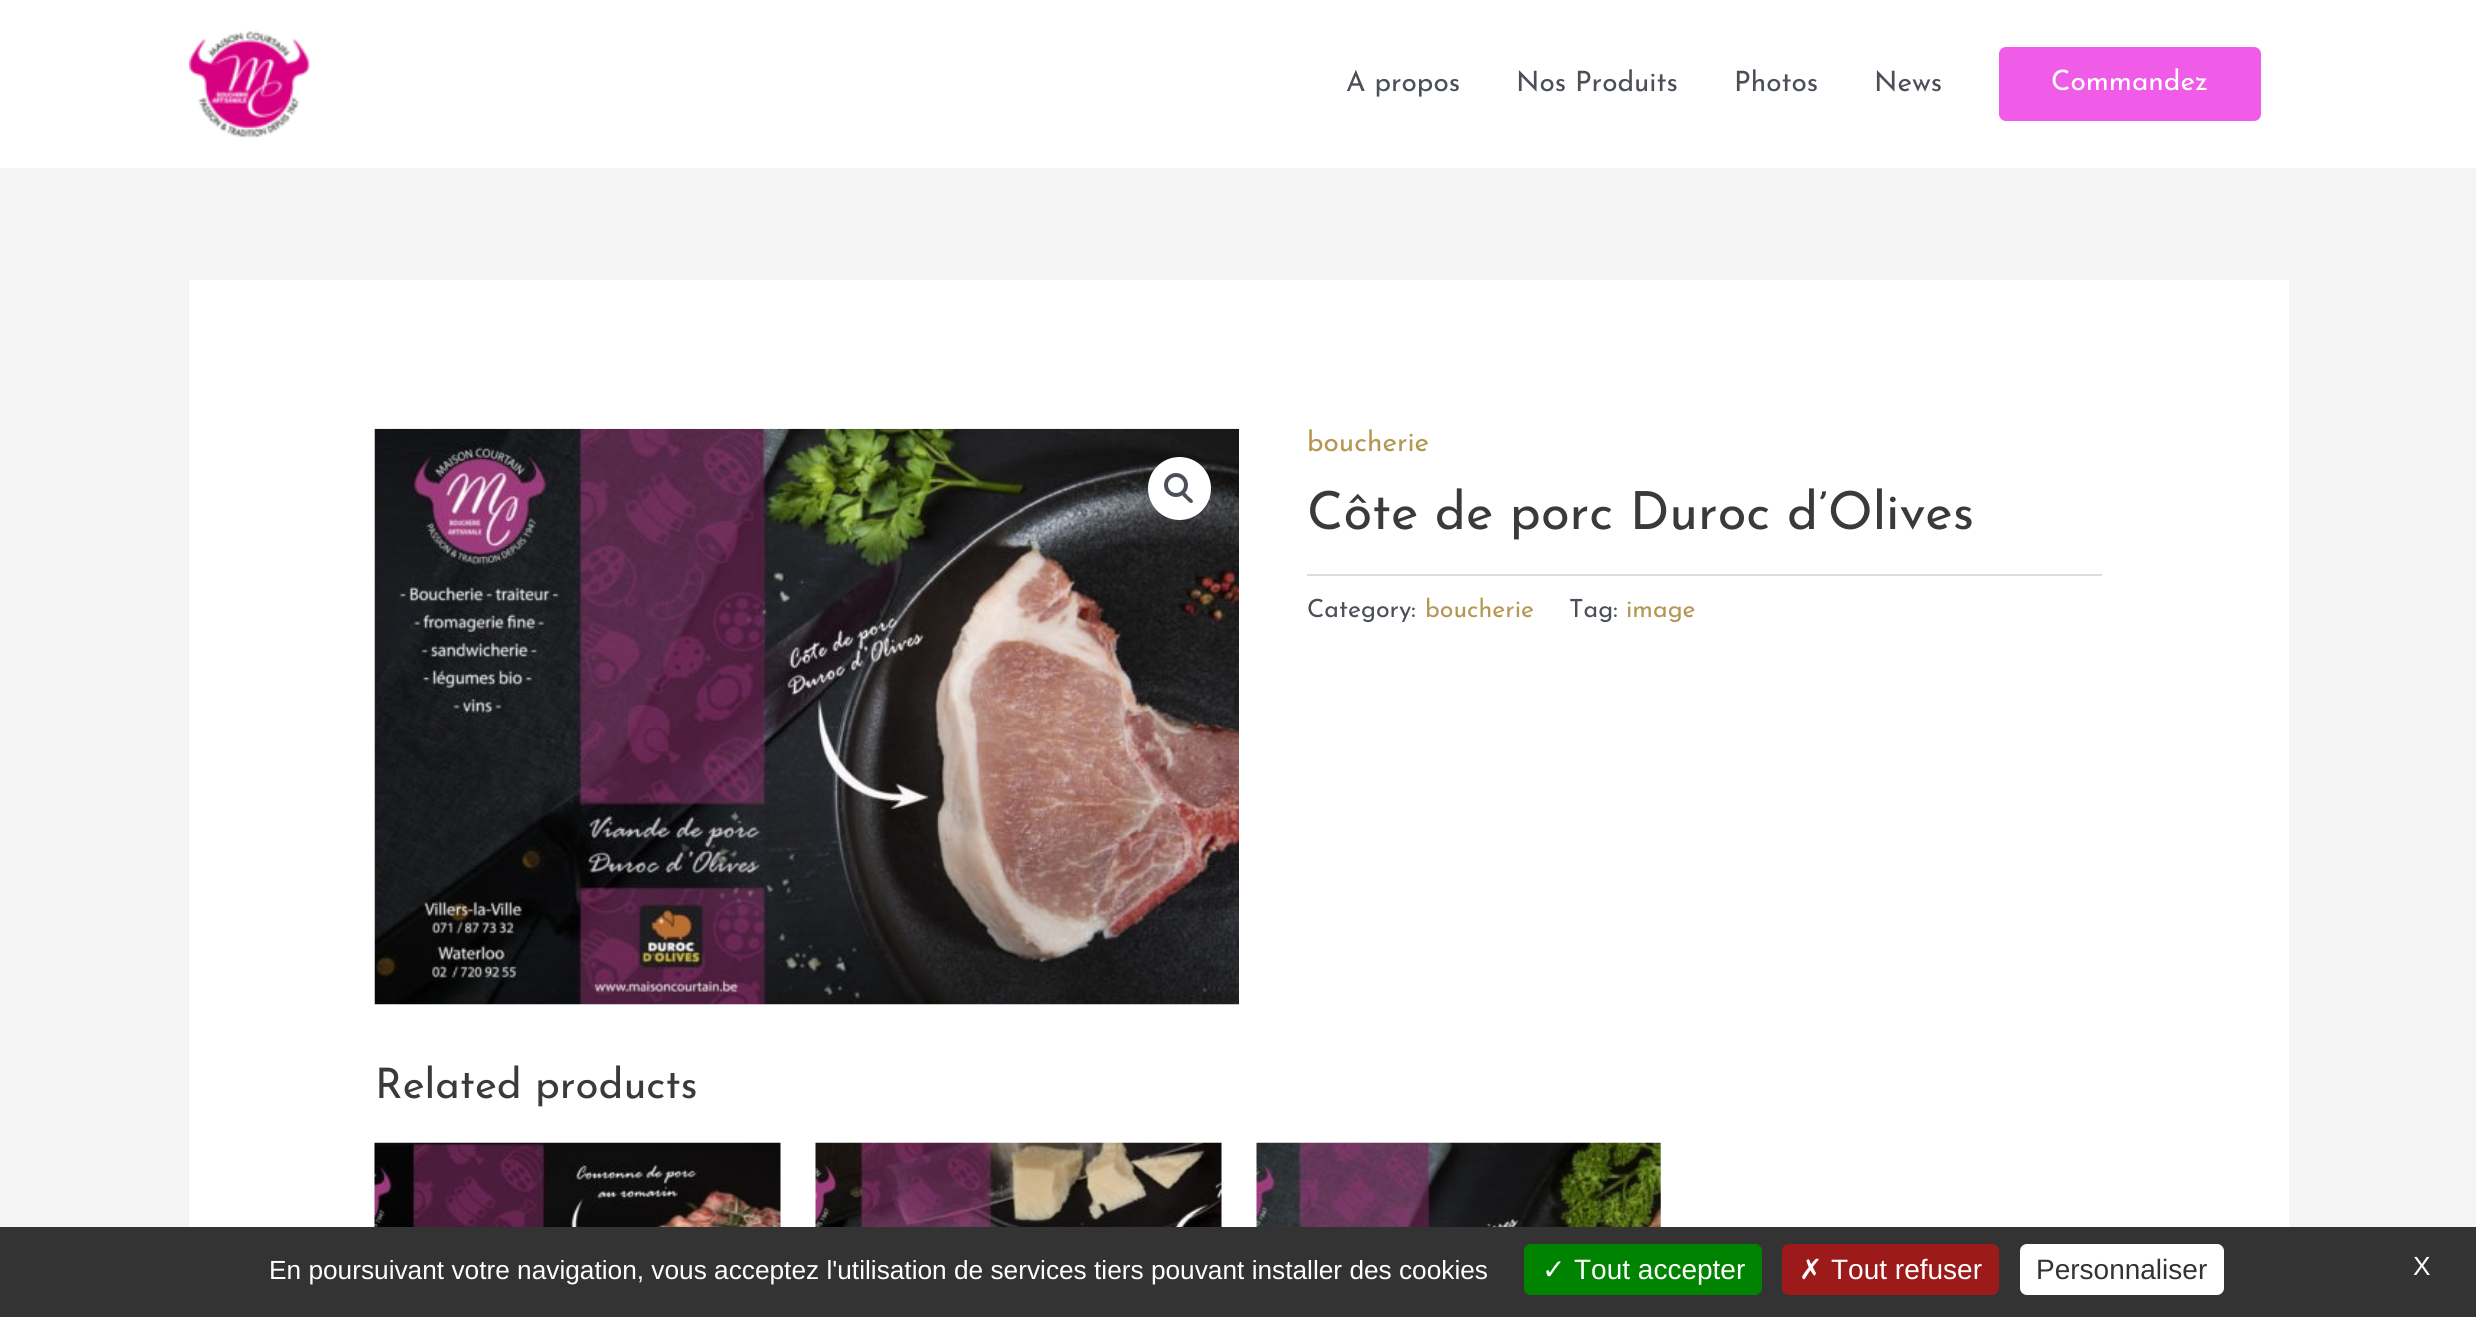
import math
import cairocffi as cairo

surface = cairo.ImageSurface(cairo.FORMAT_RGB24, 2476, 1317)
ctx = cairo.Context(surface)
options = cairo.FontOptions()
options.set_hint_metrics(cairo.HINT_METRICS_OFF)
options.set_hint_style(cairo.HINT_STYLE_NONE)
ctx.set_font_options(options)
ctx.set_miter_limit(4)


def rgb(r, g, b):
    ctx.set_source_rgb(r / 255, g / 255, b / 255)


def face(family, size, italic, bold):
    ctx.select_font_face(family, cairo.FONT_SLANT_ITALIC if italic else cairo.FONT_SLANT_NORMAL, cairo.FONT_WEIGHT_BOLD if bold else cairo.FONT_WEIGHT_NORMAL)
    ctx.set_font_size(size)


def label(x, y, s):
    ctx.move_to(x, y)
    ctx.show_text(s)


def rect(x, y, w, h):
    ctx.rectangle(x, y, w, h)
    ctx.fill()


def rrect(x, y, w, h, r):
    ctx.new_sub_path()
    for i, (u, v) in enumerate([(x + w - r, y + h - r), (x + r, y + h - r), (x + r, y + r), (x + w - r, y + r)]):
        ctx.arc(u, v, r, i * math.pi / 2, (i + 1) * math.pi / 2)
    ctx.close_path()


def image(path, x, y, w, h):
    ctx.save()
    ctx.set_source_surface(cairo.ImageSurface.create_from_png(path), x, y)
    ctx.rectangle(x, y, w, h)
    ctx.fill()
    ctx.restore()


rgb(245, 245, 245)
ctx.paint()
rgb(255, 255, 255)
rect(0, 0, 2476, 168)
image('image0.png', 189, 31, 121, 107)
face('Josefin Sans Thin', 28, 0, 0)
rgb(75, 79, 88)
label(1346, 91, 'A propos')
label(1516, 91, 'Nos Produits')
label(1734, 91, 'Photos')
label(1874, 91, 'News')
rgb(240, 92, 232)
rrect(1999, 47, 262, 74, 7)
ctx.fill()
rgb(255, 255, 255)
label(2051, 90, 'Commandez')
rect(189, 280, 2100, 947)
image('image1.png', 374, 428, 865, 577)
ctx.arc(1179.5, 488.5, 31.5, 0, 2 * math.pi)
ctx.fill()
ctx.arc(1176, 485, 10, 0, 2 * math.pi)
rgb(75, 79, 88)
ctx.set_line_width(4)
ctx.stroke()
ctx.new_path()
ctx.move_to(1182.5, 493)
ctx.curve_to(1184.5, 491, 1187.5, 495.5, 1188.5, 496.5)
ctx.curve_to(1189.5, 497.5, 1194.5, 500.5, 1192.5, 502.5)
ctx.curve_to(1190.5, 504.5, 1187, 500, 1186, 499)
ctx.curve_to(1185, 498, 1180.5, 495, 1182.5, 493)
ctx.close_path()
ctx.fill()
rgb(181, 151, 83)
label(1307, 451, 'boucherie')
face('Josefin Sans Thin', 52.5, 0, 0)
rgb(58, 58, 58)
label(1307, 529, 'Côte de porc Duroc d’Olives')
rgb(221, 221, 221)
rect(1307, 574, 795, 2)
face('Josefin Sans Thin', 25, 0, 0)
rgb(75, 79, 88)
label(1307, 617, 'Category:')
rgb(181, 151, 83)
label(1425, 617, 'boucherie')
rgb(75, 79, 88)
label(1569, 617, 'Tag:')
rgb(181, 151, 83)
label(1626, 617, 'image')
face('Josefin Sans Thin', 42, 0, 0)
rgb(58, 58, 58)
label(375, 1098, 'Related products')
image('image2.png', 374, 1142, 407, 85)
image('image3.png', 815, 1142, 407, 85)
image('image4.png', 1256, 1142, 405, 85)
rgb(51, 51, 51)
rect(0, 1227, 2476, 90)
face('Liberation Sans', 26.25, 0, 0)
rgb(255, 255, 255)
label(269, 1279, 'En poursuivant votre navigation, vous acceptez l\'utilisation de services tiers pouvant installer des cookies')
rgb(0, 131, 0)
rrect(1524, 1244, 238, 51, 7)
ctx.fill()
face('DejaVu Sans', 28, 0, 0)
rgb(255, 255, 255)
label(1542, 1279, '✓')
face('Liberation Sans', 28, 0, 0)
label(1574, 1279, 'Tout accepter')
rgb(156, 26, 26)
rrect(1782, 1244, 217, 51, 7)
ctx.fill()
face('DejaVu Sans', 28, 0, 0)
rgb(255, 255, 255)
label(1799, 1279, '✗')
face('Liberation Sans', 28, 0, 0)
label(1831, 1279, 'Tout refuser')
rrect(2020, 1244, 204, 51, 7)
ctx.fill()
rgb(51, 51, 51)
label(2036, 1279, 'Personnaliser')
face('Liberation Sans', 26.25, 0, 0)
rgb(255, 255, 255)
label(2413, 1275, 'X')
surface.write_to_png('render.png')
